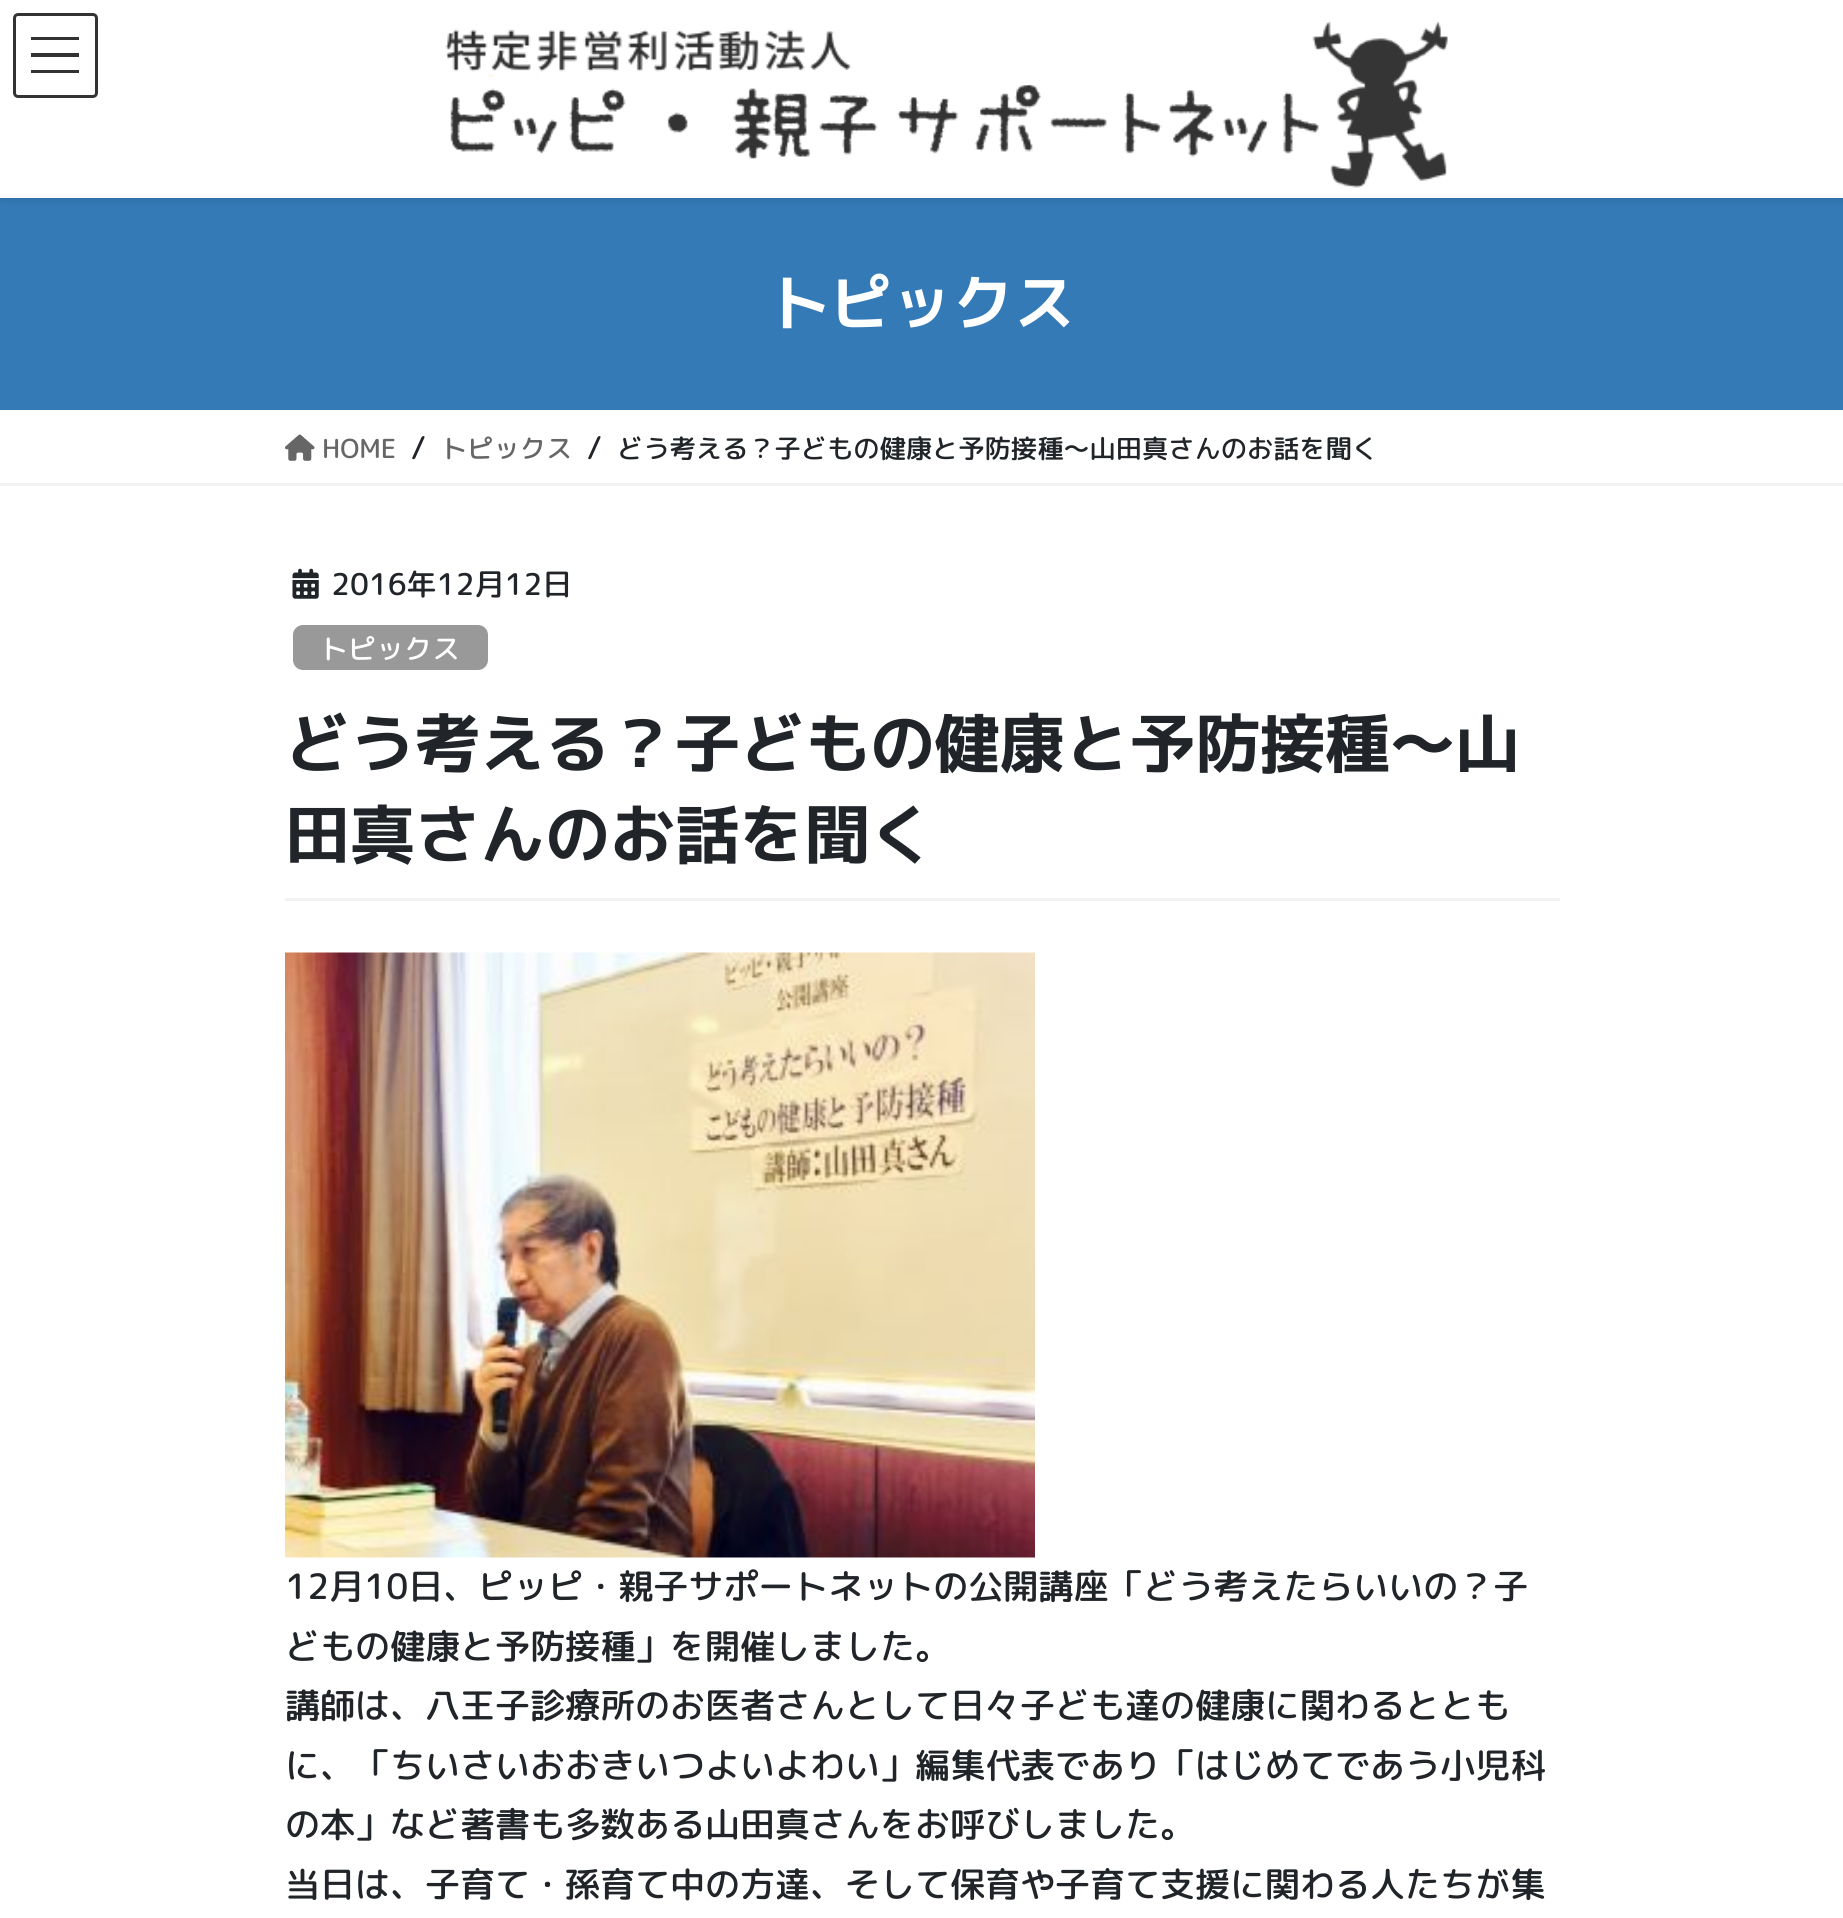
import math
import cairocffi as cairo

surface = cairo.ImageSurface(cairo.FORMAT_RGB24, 1843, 1918)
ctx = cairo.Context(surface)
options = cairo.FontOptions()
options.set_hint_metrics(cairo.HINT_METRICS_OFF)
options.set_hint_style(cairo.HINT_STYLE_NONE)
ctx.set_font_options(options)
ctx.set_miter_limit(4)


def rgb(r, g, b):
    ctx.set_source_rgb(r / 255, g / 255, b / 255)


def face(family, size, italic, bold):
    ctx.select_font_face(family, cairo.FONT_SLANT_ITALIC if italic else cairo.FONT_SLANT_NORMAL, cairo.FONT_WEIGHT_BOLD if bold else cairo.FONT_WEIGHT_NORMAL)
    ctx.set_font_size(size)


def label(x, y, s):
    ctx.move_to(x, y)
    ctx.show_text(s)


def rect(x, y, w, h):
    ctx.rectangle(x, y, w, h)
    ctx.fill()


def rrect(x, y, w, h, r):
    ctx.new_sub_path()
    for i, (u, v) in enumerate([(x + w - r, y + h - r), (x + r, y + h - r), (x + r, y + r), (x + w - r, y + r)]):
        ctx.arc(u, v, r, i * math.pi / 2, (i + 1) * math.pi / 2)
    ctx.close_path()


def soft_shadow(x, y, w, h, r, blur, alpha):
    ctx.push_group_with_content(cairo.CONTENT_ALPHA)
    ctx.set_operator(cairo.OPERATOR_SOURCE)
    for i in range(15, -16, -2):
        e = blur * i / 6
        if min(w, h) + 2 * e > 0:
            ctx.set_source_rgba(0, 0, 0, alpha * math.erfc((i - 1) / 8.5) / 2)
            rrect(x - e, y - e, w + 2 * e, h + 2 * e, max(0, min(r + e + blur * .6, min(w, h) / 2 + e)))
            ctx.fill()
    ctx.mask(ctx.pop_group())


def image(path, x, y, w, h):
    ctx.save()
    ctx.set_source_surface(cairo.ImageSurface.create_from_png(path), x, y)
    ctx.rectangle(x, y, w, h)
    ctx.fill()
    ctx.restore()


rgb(255, 255, 255)
ctx.paint()
rgb(51, 122, 183)
rect(0, 198, 1843, 212)
rgb(0, 0, 0)
soft_shadow(0, 3, 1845, 197, 0, 4, 0.1)
rgb(255, 255, 255)
rect(0, 0, 1843, 198)
image('image0.png', 445, 21, 1003, 167)
rgb(51, 51, 51)
rect(31, 37, 48, 3)
rect(31, 53, 48, 4)
rect(31, 70, 48, 3)
rrect(14.5, 14.5, 82, 82, 3.5)
ctx.set_line_width(3)
ctx.stroke()
face('M PLUS 1p', 61.25, 0, 1)
rgb(255, 255, 255)
label(769, 325, 'トピックス')
rgb(242, 242, 242)
rect(0, 483, 1843, 3)
image('image1.png', 285, 434, 30, 27)
face('Rounded Mplus 1c Medium', 26.25, 0, 0)
rgb(102, 102, 102)
label(322, 458, 'HOME')
face('Rounded Mplus 1c Medium', 30, 0, 0)
rgb(33, 37, 41)
label(411, 458, '/')
face('Rounded Mplus 1c Medium', 26.25, 0, 0)
rgb(102, 102, 102)
label(441, 458, 'トピックス')
face('Rounded Mplus 1c Medium', 30, 0, 0)
rgb(33, 37, 41)
label(587, 458, '/')
face('Rounded Mplus 1c Medium', 26.25, 0, 0)
label(617, 458, 'どう考える？子どもの健康と予防接種〜山田真さんのお話を聞く')
rgb(242, 242, 242)
rect(285, 898, 1275, 3)
image('image2.png', 292, 568, 27, 31)
face('Rounded Mplus 1c Medium', 30, 0, 0)
rgb(33, 37, 41)
label(331, 595, '2016年12月12日')
rgb(153, 153, 153)
rrect(293, 625, 195, 45, 10)
ctx.fill()
face('Rounded Mplus 1c Medium', 28, 0, 0)
rgb(255, 255, 255)
label(320, 659, 'トピックス')
face('M PLUS 1p', 65, 0, 1)
rgb(33, 37, 41)
label(285, 767, 'どう考える？子どもの健康と予防接種〜山')
label(285, 858, '田真さんのお話を聞く')
image('image3.png', 285, 952, 750, 606)
face('Rounded Mplus 1c Medium', 35, 0, 0)
label(285, 1599, '12月10日、ピッピ・親子サポートネットの公開講座「どう考えたらいいの？子')
label(285, 1659, 'どもの健康と予防接種」を開催しました。')
label(285, 1718, '講師は、八王子診療所のお医者さんとして日々子ども達の健康に関わるととも')
label(285, 1778, 'に、「ちいさいおおきいつよいよわい」編集代表であり「はじめてであう小児科')
label(285, 1837, 'の本」など著書も多数ある山田真さんをお呼びしました。')
label(285, 1897, '当日は、子育て・孫育て中の方達、そして保育や子育て支援に関わる人たちが集')
surface.write_to_png('render.png')
